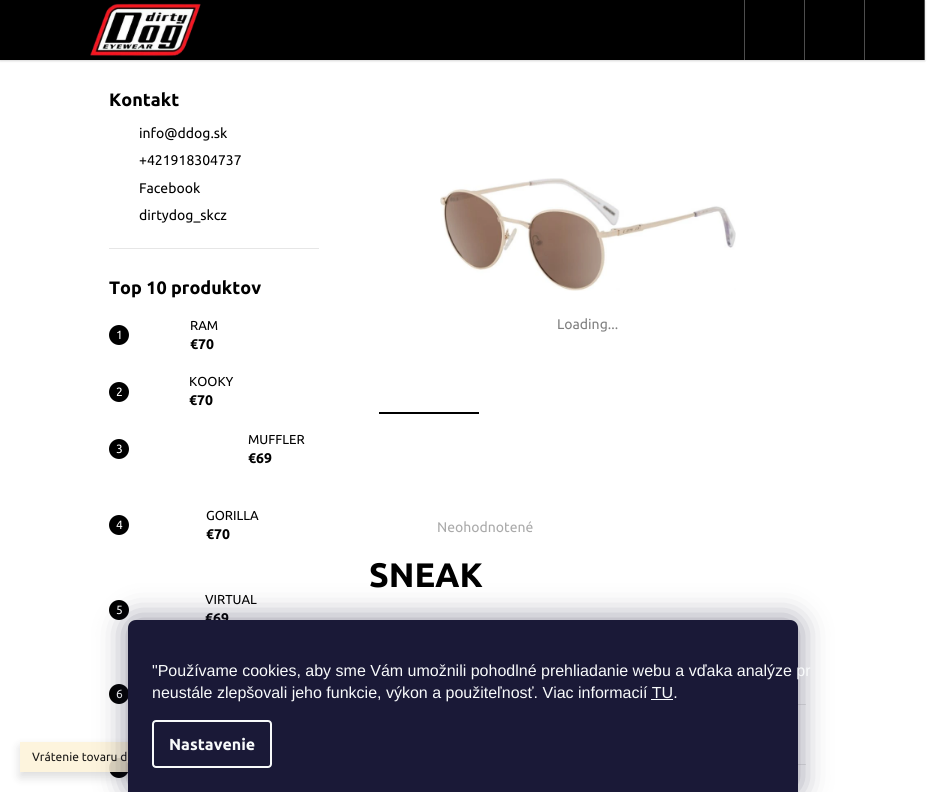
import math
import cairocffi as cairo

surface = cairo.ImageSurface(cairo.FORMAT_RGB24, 940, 792)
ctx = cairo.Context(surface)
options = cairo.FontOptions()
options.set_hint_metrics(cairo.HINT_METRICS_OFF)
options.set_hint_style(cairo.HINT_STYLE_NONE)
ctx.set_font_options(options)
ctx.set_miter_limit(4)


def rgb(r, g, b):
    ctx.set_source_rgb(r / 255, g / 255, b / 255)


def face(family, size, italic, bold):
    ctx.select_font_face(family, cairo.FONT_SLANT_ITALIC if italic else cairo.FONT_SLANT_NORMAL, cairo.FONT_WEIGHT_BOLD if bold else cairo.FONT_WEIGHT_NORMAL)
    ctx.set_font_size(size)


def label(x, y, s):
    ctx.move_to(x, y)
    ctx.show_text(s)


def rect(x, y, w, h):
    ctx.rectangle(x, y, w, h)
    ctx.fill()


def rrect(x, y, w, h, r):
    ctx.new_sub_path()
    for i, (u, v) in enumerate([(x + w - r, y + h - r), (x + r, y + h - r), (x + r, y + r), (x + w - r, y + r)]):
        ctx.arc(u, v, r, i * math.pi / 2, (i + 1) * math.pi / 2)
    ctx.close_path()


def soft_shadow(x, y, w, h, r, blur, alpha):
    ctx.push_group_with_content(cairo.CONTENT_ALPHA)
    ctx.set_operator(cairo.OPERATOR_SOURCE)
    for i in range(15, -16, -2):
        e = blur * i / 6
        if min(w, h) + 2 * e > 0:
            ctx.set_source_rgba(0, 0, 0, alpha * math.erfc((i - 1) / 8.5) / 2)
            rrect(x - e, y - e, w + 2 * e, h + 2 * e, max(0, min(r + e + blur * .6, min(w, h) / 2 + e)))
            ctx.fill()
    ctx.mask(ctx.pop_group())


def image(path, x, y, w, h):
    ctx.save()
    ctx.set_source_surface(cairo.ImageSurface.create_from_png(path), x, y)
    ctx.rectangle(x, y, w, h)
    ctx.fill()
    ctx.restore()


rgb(255, 255, 255)
ctx.paint()
rgb(0, 0, 0)
soft_shadow(0, 1, 925, 60, 0, 1, 0.16)
rgb(0, 0, 0)
rect(0, 0, 924, 60)
image('image0.png', 90, 3, 111, 54)
rgb(77, 77, 77)
rect(924, 0, 1, 60)
rect(744, 0, 1, 60)
rect(804, 0, 1, 60)
rect(864, 0, 1, 60)
face('Ubuntu', 18, 0, 1)
rgb(0, 0, 0)
label(109, 106, 'Kontakt')
face('Ubuntu', 14, 0, 0)
label(139, 138, 'info@ddog.sk')
label(139, 165, '+421918304737')
label(139, 193, 'Facebook')
label(139, 220, 'dirtydog_skcz')
rgb(230, 230, 230)
rect(109, 248, 210, 1)
face('Ubuntu', 18, 0, 1)
rgb(0, 0, 0)
label(109, 294, 'Top 10 produktov')
ctx.new_path()
ctx.arc(119, 335, 10, 0, 2 * math.pi)
ctx.fill()
face('Ubuntu', 12, 0, 0)
rgb(255, 255, 255)
label(116, 339, '1')
face('Ubuntu', 13, 0, 0)
rgb(0, 0, 0)
label(190, 330, 'RAM')
face('Ubuntu', 14, 0, 1)
label(190, 349, '€70')
ctx.new_path()
ctx.arc(119, 392, 10, 0, 2 * math.pi)
ctx.fill()
face('Ubuntu', 12, 0, 0)
rgb(255, 255, 255)
label(116, 396, '2')
face('Ubuntu', 13, 0, 0)
rgb(0, 0, 0)
label(189, 386, 'KOOKY')
face('Ubuntu', 14, 0, 1)
label(189, 405, '€70')
ctx.new_path()
ctx.arc(119, 449, 10, 0, 2 * math.pi)
ctx.fill()
face('Ubuntu', 12, 0, 0)
rgb(255, 255, 255)
label(116, 453, '3')
face('Ubuntu', 13, 0, 0)
rgb(0, 0, 0)
label(248, 444, 'MUFFLER')
face('Ubuntu', 14, 0, 1)
label(248, 463, '€69')
ctx.new_path()
ctx.arc(119, 525, 10, 0, 2 * math.pi)
ctx.fill()
face('Ubuntu', 12, 0, 0)
rgb(255, 255, 255)
label(116, 529, '4')
face('Ubuntu', 13, 0, 0)
rgb(0, 0, 0)
label(206, 520, 'GORILLA')
face('Ubuntu', 14, 0, 1)
label(206, 539, '€70')
ctx.new_path()
ctx.arc(119, 610, 10, 0, 2 * math.pi)
ctx.fill()
face('Ubuntu', 12, 0, 0)
rgb(255, 255, 255)
label(116, 614, '5')
face('Ubuntu', 13, 0, 0)
rgb(0, 0, 0)
label(205, 604, 'VIRTUAL')
face('Ubuntu', 14, 0, 1)
label(205, 623, '€69')
ctx.new_path()
ctx.arc(119, 694, 10, 0, 2 * math.pi)
ctx.fill()
face('Ubuntu', 12, 0, 0)
rgb(255, 255, 255)
label(116, 698, '6')
rgb(0, 0, 0)
ctx.new_path()
ctx.arc(119, 768, 10, 0, 2 * math.pi)
ctx.fill()
image('image1.png', 440, 178, 296, 113)
face('Ubuntu', 14, 0, 0)
rgb(128, 128, 128)
label(557, 329, 'Loading...')
rgb(0, 0, 0)
rect(379, 412, 100, 2)
rgb(170, 170, 170)
label(437, 532, 'Neohodnotené')
face('Ubuntu', 34, 0, 1)
rgb(0, 0, 0)
label(369, 587, 'SNEAK')
rgb(231, 231, 231)
rect(798, 704, 8, 1)
rect(798, 764, 8, 1)
ctx.save()
ctx.set_fill_rule(cairo.FILL_RULE_EVEN_ODD)
ctx.new_path()
ctx.move_to(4, 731)
ctx.line_to(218, 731)
ctx.line_to(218, 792)
ctx.line_to(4, 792)
ctx.close_path()
ctx.move_to(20, 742)
ctx.line_to(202, 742)
ctx.line_to(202, 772)
ctx.line_to(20, 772)
ctx.close_path()
ctx.clip()
rgb(0, 0, 0)
soft_shadow(20, 747, 182, 30, 0, 5, 0.14)
ctx.restore()
ctx.set_source_rgba(0.992, 0.953, 0.855, 0.9)
rect(20, 742, 108, 30)
face('Ubuntu', 12, 0, 0)
rgb(25, 24, 22)
label(32, 761, 'Vrátenie tovaru d')
rgb(27, 25, 57)
soft_shadow(128, 620, 670, 172, 8, 15, 0.5)
rgb(26, 25, 55)
ctx.new_path()
ctx.move_to(136, 620)
ctx.line_to(790, 620)
ctx.curve_to(794.5, 620, 798, 623.5, 798, 628)
ctx.line_to(798, 792)
ctx.line_to(128, 792)
ctx.line_to(128, 628)
ctx.curve_to(128, 623.5, 131.5, 620, 136, 620)
ctx.close_path()
ctx.fill()
face('Liberation Sans', 16, 0, 0)
rgb(248, 250, 251)
label(152, 676, '"Používame cookies, aby sme Vám umožnili pohodlné prehliadanie webu a vďaka analýze pr')
label(152, 698, 'neustále zlepšovali jeho funkcie, výkon a použiteľnosť. Viac informacií TU.')
rect(651, 699, 22, 1)
rrect(153, 721, 118, 46, 3)
ctx.stroke()
face('Ubuntu', 16, 0, 1)
label(169, 750, 'Nastavenie')
surface.write_to_png('render.png')
